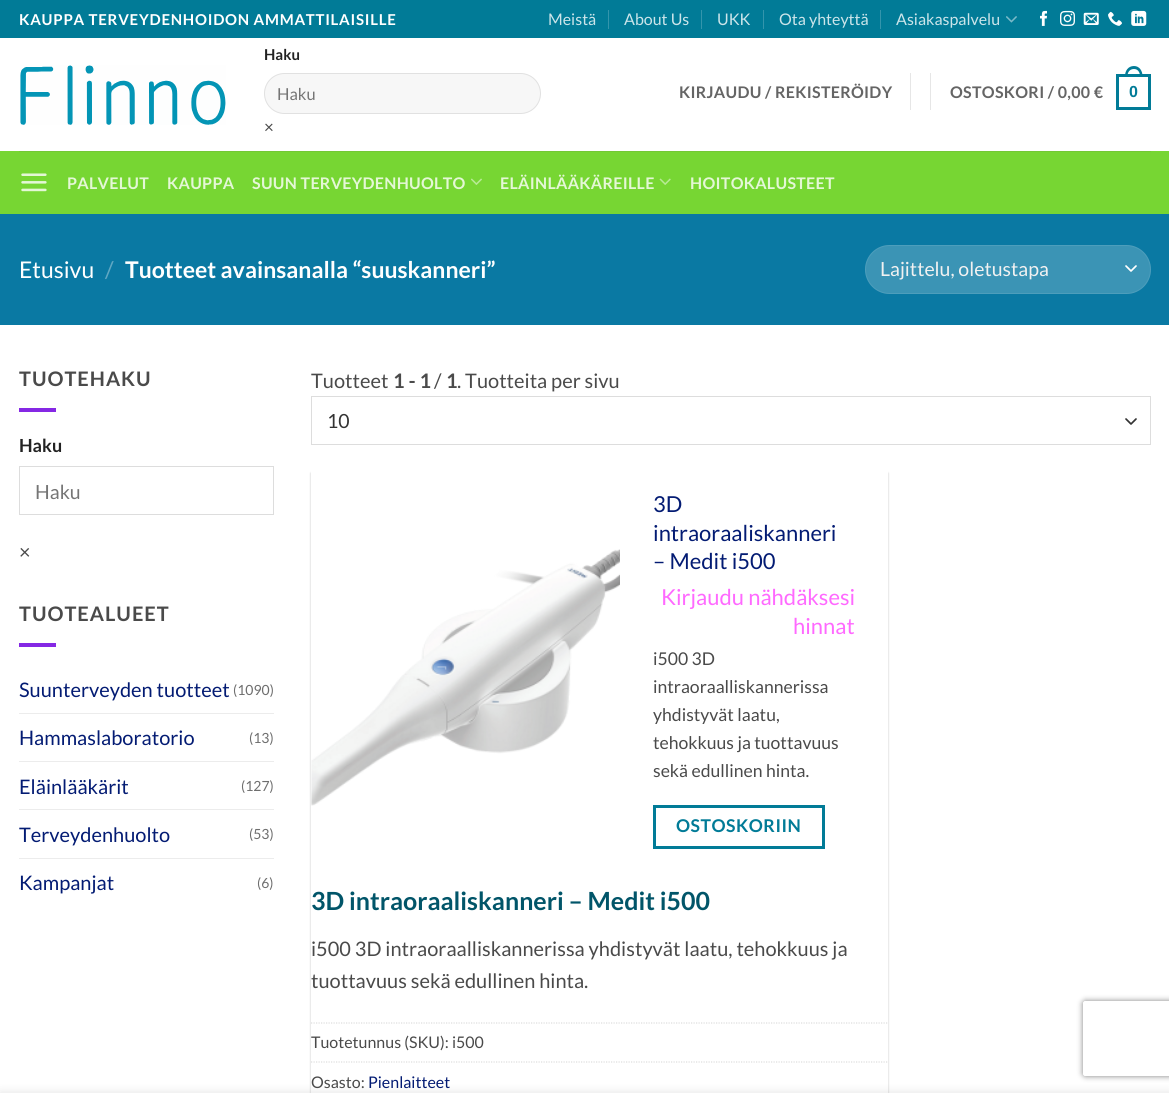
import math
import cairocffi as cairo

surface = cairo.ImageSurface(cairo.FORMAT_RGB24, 1169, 1093)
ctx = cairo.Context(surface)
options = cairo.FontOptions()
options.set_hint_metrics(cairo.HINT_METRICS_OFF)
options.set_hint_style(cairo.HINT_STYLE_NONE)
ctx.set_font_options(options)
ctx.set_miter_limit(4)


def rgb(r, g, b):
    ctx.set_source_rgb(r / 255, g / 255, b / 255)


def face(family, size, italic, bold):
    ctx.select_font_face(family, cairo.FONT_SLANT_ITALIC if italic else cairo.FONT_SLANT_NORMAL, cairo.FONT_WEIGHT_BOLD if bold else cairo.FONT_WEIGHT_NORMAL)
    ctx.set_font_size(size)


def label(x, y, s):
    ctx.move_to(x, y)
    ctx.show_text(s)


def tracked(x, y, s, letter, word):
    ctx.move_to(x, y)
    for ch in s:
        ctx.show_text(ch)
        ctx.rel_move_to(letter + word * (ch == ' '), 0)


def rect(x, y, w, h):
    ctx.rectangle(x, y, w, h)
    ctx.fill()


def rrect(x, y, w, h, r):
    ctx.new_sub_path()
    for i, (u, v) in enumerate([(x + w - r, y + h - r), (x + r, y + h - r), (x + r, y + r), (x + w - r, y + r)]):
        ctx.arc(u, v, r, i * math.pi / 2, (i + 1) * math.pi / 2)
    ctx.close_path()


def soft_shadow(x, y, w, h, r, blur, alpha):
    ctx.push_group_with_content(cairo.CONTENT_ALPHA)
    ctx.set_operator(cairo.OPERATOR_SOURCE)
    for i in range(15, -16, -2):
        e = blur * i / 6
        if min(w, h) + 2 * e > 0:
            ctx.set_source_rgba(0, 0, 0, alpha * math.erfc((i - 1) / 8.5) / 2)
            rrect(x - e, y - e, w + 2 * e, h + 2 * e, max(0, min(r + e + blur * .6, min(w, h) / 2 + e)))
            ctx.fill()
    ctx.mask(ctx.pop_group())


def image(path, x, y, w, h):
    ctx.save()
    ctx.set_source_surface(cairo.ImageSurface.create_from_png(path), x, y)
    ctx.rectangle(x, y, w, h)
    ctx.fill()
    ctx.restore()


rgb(255, 255, 255)
ctx.paint()
rgb(1, 123, 151)
rect(0, 0, 1169, 38)
face('Lato', 15, 0, 1)
rgb(255, 255, 255)
tracked(19, 25, 'KAUPPA TERVEYDENHOIDON AMMATTILAISILLE', 0.75, 0)
face('Lato', 16, 0, 0)
rgb(204, 229, 234)
label(548, 25, 'Meistä')
rgb(52, 149, 172)
rect(608, 10, 1, 19)
rgb(204, 229, 234)
label(624, 25, 'About Us')
rgb(52, 149, 172)
rect(701, 10, 1, 19)
rgb(204, 229, 234)
label(717, 25, 'UKK')
rgb(52, 149, 172)
rect(763, 10, 1, 19)
rgb(204, 229, 234)
label(779, 25, 'Ota yhteyttä')
rgb(52, 149, 172)
rect(880, 10, 1, 19)
rgb(204, 229, 234)
label(896, 25, 'Asiakaspalvelu')
image('image0.png', 1006, 16, 11, 7)
image('image1.png', 1040, 10, 7, 16)
image('image2.png', 1060, 10, 15, 16)
image('image3.png', 1083, 12, 16, 13)
image('image4.png', 1108, 11, 14, 15)
image('image5.png', 1131, 10, 16, 16)
image('image6.png', 20, 65, 206, 60)
face('Lato', 15, 0, 1)
rgb(34, 34, 34)
label(264, 60, 'Haku')
rgb(247, 247, 247)
rrect(264, 73, 277, 41, 20.5)
ctx.fill()
rrect(264.5, 73.5, 276, 40, 20)
ctx.set_source_rgba(0, 0, 0, 0.09)
ctx.set_line_width(1)
ctx.stroke()
face('Lato', 16.5, 0, 0)
rgb(117, 117, 117)
label(277, 100, 'Haku')
face('Lato', 17, 0, 0)
rgb(74, 74, 74)
label(264, 133, '×')
face('Lato', 16, 0, 1)
rgb(101, 101, 101)
tracked(679, 98, 'KIRJAUDU / REKISTERÖIDY', 0.3, 0)
rgb(230, 230, 230)
rect(910, 73, 1, 37)
rect(930, 73, 1, 37)
rgb(101, 101, 101)
tracked(950, 98, 'OSTOSKORI / 0,00 €', 0.3, 0)
ctx.rectangle(1117.5, 75.5, 32, 33)
rgb(1, 123, 151)
ctx.set_line_width(3)
ctx.stroke()
ctx.set_fill_rule(cairo.FILL_RULE_EVEN_ODD)
ctx.new_path()
ctx.move_to(1134, 66)
ctx.curve_to(1139.5, 66, 1142.5, 71, 1142.5, 76)
ctx.line_to(1125, 76)
ctx.curve_to(1125, 71, 1128, 66, 1134, 66)
ctx.close_path()
ctx.move_to(1134, 69)
ctx.curve_to(1138, 69, 1140, 72.5, 1140, 76)
ctx.line_to(1127.5, 76)
ctx.curve_to(1127.5, 72.5, 1129.5, 69, 1134, 69)
ctx.close_path()
ctx.fill()
face('Liberation Sans', 16, 0, 1)
tracked(1129, 97, '0', 0.3, 0)
rgb(119, 214, 51)
rect(0, 151, 1169, 63)
rgb(115, 200, 53)
rect(19, 151, 1132, 1)
image('image7.png', 21, 173, 26, 19)
face('Lato', 16, 0, 1)
rgb(228, 247, 214)
tracked(67, 189, 'PALVELUT', 0.3, 0)
tracked(167, 189, 'KAUPPA', 0.3, 0)
tracked(252, 189, 'SUUN TERVEYDENHUOLTO', 0.3, 0)
image('image8.png', 471, 178, 11, 7)
tracked(500, 189, 'ELÄINLÄÄKÄREILLE', 0.3, 0)
image('image9.png', 659, 178, 12, 7)
tracked(690, 189, 'HOITOKALUSTEET', 0.3, 0)
rgb(10, 121, 163)
rect(0, 214, 1169, 111)
face('Lato', 23, 0, 0)
rgb(255, 255, 255)
label(19, 278, 'Etusivu')
rgb(96, 168, 195)
label(105, 278, '/')
face('Lato', 23, 0, 1)
rgb(255, 255, 255)
label(125, 278, 'Tuotteet avainsanalla “suuskanneri”')
rgb(59, 148, 181)
rrect(865, 245, 286, 49, 24.5)
ctx.fill()
ctx.new_path()
ctx.move_to(1126, 266)
ctx.line_to(1131, 271)
ctx.line_to(1136, 266)
rgb(255, 255, 255)
ctx.set_line_width(1.7)
ctx.set_line_cap(cairo.LINE_CAP_ROUND)
ctx.set_line_join(cairo.LINE_JOIN_ROUND)
ctx.stroke()
rrect(865.5, 245.5, 285, 48, 24)
ctx.set_source_rgba(1, 1, 1, 0.09)
ctx.set_line_width(1)
ctx.set_line_cap(cairo.LINE_CAP_BUTT)
ctx.set_line_join(cairo.LINE_JOIN_MITER)
ctx.stroke()
face('Lato', 19.5, 0, 0)
rgb(241, 241, 241)
label(880, 276, 'Lajittelu, oletustapa')
face('Lato', 20, 0, 1)
rgb(74, 74, 74)
tracked(19, 386, 'TUOTEHAKU', 1, 0)
rgb(133, 40, 228)
rect(19, 408, 37, 4)
face('Lato', 18, 0, 1)
rgb(34, 34, 34)
label(19, 452, 'Haku')
ctx.rectangle(19.5, 466.5, 254, 48)
rgb(221, 221, 221)
ctx.stroke()
face('Lato', 19.5, 0, 0)
rgb(117, 117, 117)
label(35, 499, 'Haku')
face('Lato', 20, 0, 0)
rgb(74, 74, 74)
label(19, 559, '×')
face('Lato', 20, 0, 1)
tracked(19, 621, 'TUOTEALUEET', 1, 0)
rgb(133, 40, 228)
rect(19, 643, 37, 4)
face('Lato', 20, 0, 0)
rgb(3, 27, 115)
label(19, 697, 'Suunterveyden tuotteet')
face('Lato', 14, 0, 0)
rgb(110, 110, 110)
label(233, 695, '(1090)')
rgb(236, 236, 236)
rect(19, 713, 255, 1)
face('Lato', 20, 0, 0)
rgb(3, 27, 115)
label(19, 745, 'Hammaslaboratorio')
face('Lato', 14, 0, 0)
rgb(110, 110, 110)
label(249, 743, '(13)')
rgb(236, 236, 236)
rect(19, 761, 255, 1)
face('Lato', 20, 0, 0)
rgb(3, 27, 115)
label(19, 794, 'Eläinlääkärit')
face('Lato', 14, 0, 0)
rgb(110, 110, 110)
label(241, 791, '(127)')
rgb(236, 236, 236)
rect(19, 809, 255, 1)
face('Lato', 20, 0, 0)
rgb(3, 27, 115)
label(19, 842, 'Terveydenhuolto')
face('Lato', 14, 0, 0)
rgb(110, 110, 110)
label(249, 839, '(53)')
rgb(236, 236, 236)
rect(19, 858, 255, 1)
face('Lato', 20, 0, 0)
rgb(3, 27, 115)
label(19, 890, 'Kampanjat')
face('Lato', 14, 0, 0)
rgb(110, 110, 110)
label(257, 888, '(6)')
face('Lato', 20, 0, 0)
rgb(74, 74, 74)
label(311, 388, 'Tuotteet')
face('Lato', 20, 0, 1)
label(393, 388, '1 - 1')
face('Lato', 20, 0, 0)
label(434, 388, '/')
face('Lato', 20, 0, 1)
label(446, 388, '1')
face('Lato', 20, 0, 0)
label(457, 388, '. Tuotteita per sivu')
ctx.new_path()
ctx.move_to(1126, 419)
ctx.line_to(1131, 424)
ctx.line_to(1136, 419)
rgb(51, 51, 51)
ctx.set_line_width(1.7)
ctx.set_line_cap(cairo.LINE_CAP_ROUND)
ctx.set_line_join(cairo.LINE_JOIN_ROUND)
ctx.stroke()
ctx.rectangle(311.5, 396.5, 839, 48)
rgb(221, 221, 221)
ctx.set_line_width(1)
ctx.set_line_cap(cairo.LINE_CAP_BUTT)
ctx.set_line_join(cairo.LINE_JOIN_MITER)
ctx.stroke()
face('Lato', 19.5, 0, 0)
rgb(51, 51, 51)
label(327, 428, '10')
rgb(0, 0, 0)
soft_shadow(311, 473, 577, 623, 0, 1, 0.24)
rgb(255, 255, 255)
rect(311, 471, 577, 622)
image('image10.png', 311, 549, 309, 257)
face('Lato', 22, 0, 0)
rgb(3, 27, 115)
label(653, 512, '3D')
label(653, 541, 'intraoraaliskanneri')
label(653, 569, '– Medit i500')
rgb(255, 105, 255)
label(661, 605, 'Kirjaudu nähdäksesi')
label(793, 634, 'hinnat')
face('Lato', 17.6, 0, 0)
rgb(74, 74, 74)
label(653, 665, 'i500 3D')
label(653, 693, 'intraoraalliskannerissa')
label(653, 721, 'yhdistyvät laatu,')
label(653, 749, 'tehokkuus ja tuottavuus')
label(653, 777, 'sekä edullinen hinta.')
ctx.rectangle(654.5, 806.5, 169, 41)
rgb(1, 123, 151)
ctx.set_line_width(3)
ctx.stroke()
face('Lato', 17.6, 0, 1)
tracked(676, 832, 'OSTOSKORIIN', 0.5, 0)
face('Lato', 25, 0, 1)
rgb(1, 85, 105)
label(311, 910, '3D intraoraaliskanneri – Medit i500')
face('Lato', 20, 0, 0)
rgb(74, 74, 74)
label(311, 956, 'i500 3D intraoraalliskannerissa yhdistyvät laatu, tehokkuus ja')
label(311, 988, 'tuottavuus sekä edullinen hinta.')
ctx.new_path()
ctx.move_to(311, 1023)
ctx.line_to(887.5, 1023)
rgb(221, 221, 221)
ctx.set_line_width(1.2)
ctx.set_dash([1.25, 1.25])
ctx.stroke()
face('Lato', 16, 0, 0)
rgb(74, 74, 74)
label(311, 1048, 'Tuotetunnus (SKU): i500')
ctx.new_path()
ctx.move_to(311, 1062)
ctx.line_to(887.5, 1062)
rgb(221, 221, 221)
ctx.stroke()
rgb(74, 74, 74)
label(311, 1088, 'Osasto:')
rgb(3, 27, 115)
label(368, 1088, 'Pienlaitteet')
ctx.save()
ctx.new_path()
ctx.move_to(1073, 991)
ctx.line_to(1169, 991)
ctx.line_to(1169, 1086)
ctx.line_to(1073, 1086)
ctx.close_path()
ctx.move_to(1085.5, 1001)
ctx.line_to(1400.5, 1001)
ctx.curve_to(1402, 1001, 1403, 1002, 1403, 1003.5)
ctx.line_to(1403, 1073.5)
ctx.curve_to(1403, 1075, 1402, 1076, 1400.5, 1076)
ctx.line_to(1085.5, 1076)
ctx.curve_to(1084, 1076, 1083, 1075, 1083, 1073.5)
ctx.line_to(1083, 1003.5)
ctx.curve_to(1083, 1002, 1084, 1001, 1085.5, 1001)
ctx.close_path()
ctx.clip()
rgb(128, 128, 128)
soft_shadow(1083, 1001, 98, 75, 2.5, 3, 1)
ctx.restore()
rgb(0, 0, 0)
soft_shadow(0, 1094, 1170, 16, 0, 5.5, 0.14)
surface.write_to_png('render.png')
